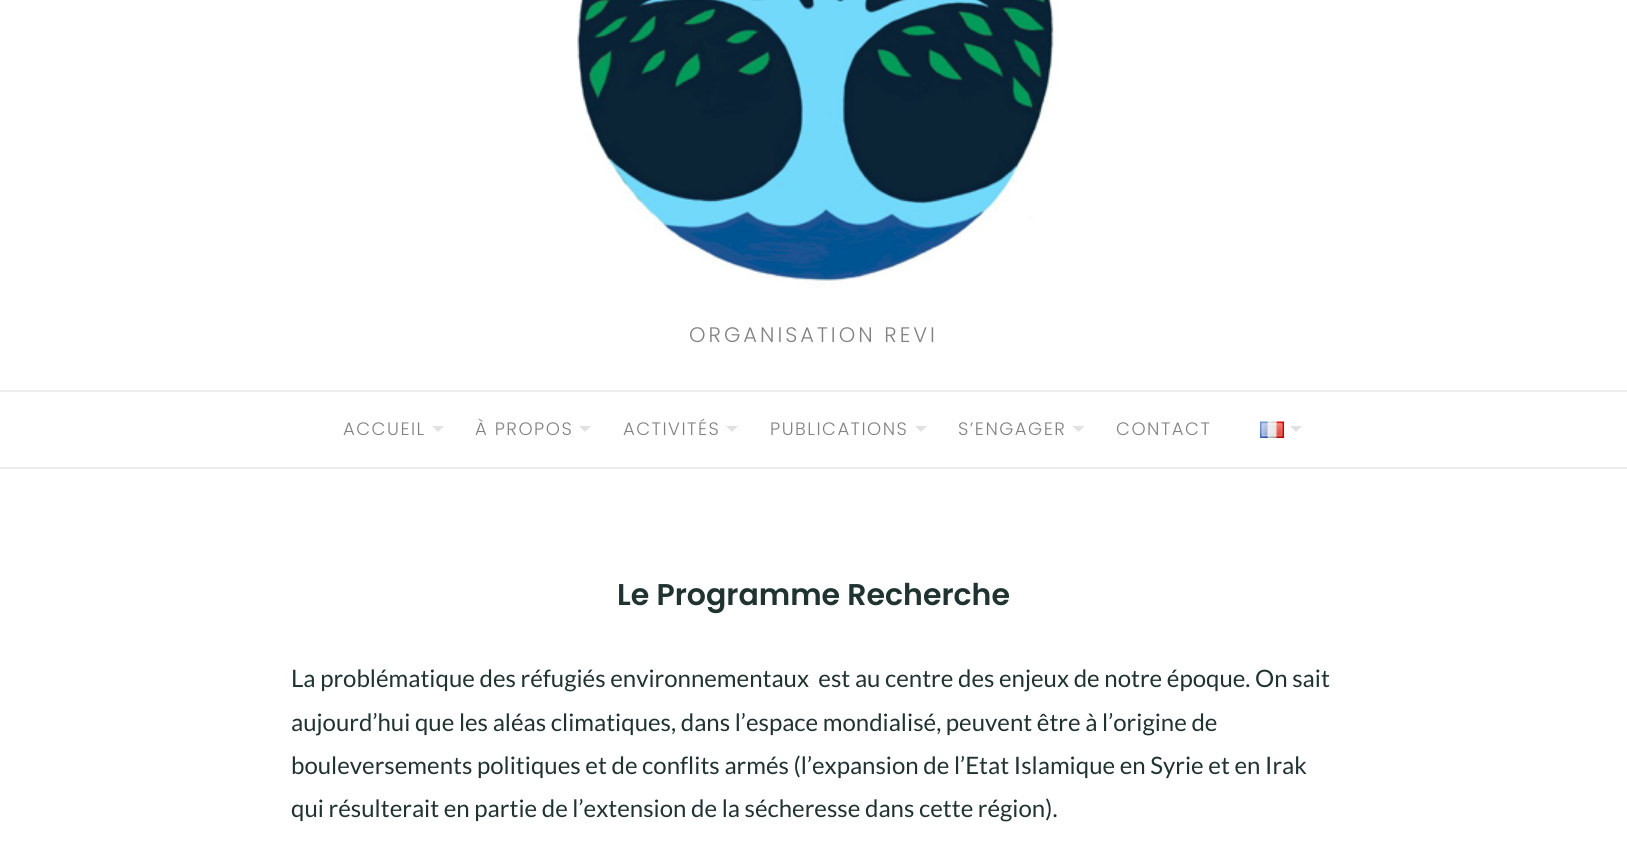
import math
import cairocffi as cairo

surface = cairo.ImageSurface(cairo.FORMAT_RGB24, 1627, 862)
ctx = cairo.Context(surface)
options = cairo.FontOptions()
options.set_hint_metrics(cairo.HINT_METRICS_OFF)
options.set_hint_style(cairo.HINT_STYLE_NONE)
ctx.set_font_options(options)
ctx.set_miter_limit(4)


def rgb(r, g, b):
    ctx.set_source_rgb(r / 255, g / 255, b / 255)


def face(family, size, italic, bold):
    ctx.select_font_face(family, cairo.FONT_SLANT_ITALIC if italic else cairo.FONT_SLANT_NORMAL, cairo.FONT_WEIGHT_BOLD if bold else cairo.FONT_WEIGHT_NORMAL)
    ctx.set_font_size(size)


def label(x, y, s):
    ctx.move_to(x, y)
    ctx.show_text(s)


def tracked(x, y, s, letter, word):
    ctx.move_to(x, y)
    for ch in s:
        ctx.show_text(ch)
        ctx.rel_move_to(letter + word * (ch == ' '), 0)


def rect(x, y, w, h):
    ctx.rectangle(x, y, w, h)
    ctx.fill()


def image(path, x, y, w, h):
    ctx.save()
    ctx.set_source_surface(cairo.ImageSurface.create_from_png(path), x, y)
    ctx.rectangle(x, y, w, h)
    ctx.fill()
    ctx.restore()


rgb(255, 255, 255)
ctx.paint()
image('image0.png', 577, 0, 480, 288)
face('Poppins Light', 21, 0, 0)
rgb(129, 129, 129)
tracked(689, 342, 'ORGANISATION REVI', 3, 0)
rgb(238, 238, 238)
rect(0, 390, 1627, 2)
rect(0, 467, 1627, 2)
face('Poppins Light', 18, 0, 0)
rgb(129, 129, 129)
tracked(343, 435, 'ACCUEIL', 1.5, 0)
rgb(225, 225, 225)
ctx.new_path()
ctx.move_to(432, 426)
ctx.line_to(444, 426)
ctx.line_to(438, 432)
ctx.close_path()
ctx.fill()
rgb(129, 129, 129)
tracked(475, 435, 'À PROPOS', 1.5, 0)
rgb(225, 225, 225)
ctx.new_path()
ctx.move_to(579, 426)
ctx.line_to(591, 426)
ctx.line_to(585, 432)
ctx.close_path()
ctx.fill()
rgb(129, 129, 129)
tracked(623, 435, 'ACTIVITÉS', 1.5, 0)
rgb(225, 225, 225)
ctx.new_path()
ctx.move_to(726, 426)
ctx.line_to(738, 426)
ctx.line_to(732, 432)
ctx.close_path()
ctx.fill()
rgb(129, 129, 129)
tracked(770, 435, 'PUBLICATIONS', 1.5, 0)
rgb(225, 225, 225)
ctx.new_path()
ctx.move_to(915, 426)
ctx.line_to(927, 426)
ctx.line_to(921, 432)
ctx.close_path()
ctx.fill()
rgb(129, 129, 129)
tracked(958, 435, 'S’ENGAGER', 1.5, 0)
rgb(225, 225, 225)
ctx.new_path()
ctx.move_to(1072.5, 426)
ctx.line_to(1084.5, 426)
ctx.line_to(1078.5, 432)
ctx.close_path()
ctx.fill()
rgb(129, 129, 129)
tracked(1116, 435, 'CONTACT', 1.5, 0)
image('image1.png', 1260, 421, 24, 17)
rgb(225, 225, 225)
ctx.new_path()
ctx.move_to(1290, 426)
ctx.line_to(1302, 426)
ctx.line_to(1296, 432)
ctx.close_path()
ctx.fill()
face('Poppins SemiBold', 30, 0, 0)
rgb(31, 51, 49)
label(617, 605, 'Le Programme Recherche')
face('Lato', 24, 0, 0)
label(291, 687, 'La problématique des réfugiés environnementaux  est au centre des enjeux de notre époque. On sait')
label(291, 731, 'aujourd’hui que les aléas climatiques, dans l’espace mondialisé, peuvent être à l’origine de')
label(291, 774, 'bouleversements politiques et de conflits armés (l’expansion de l’Etat Islamique en Syrie et en Irak')
label(291, 817, 'qui résulterait en partie de l’extension de la sécheresse dans cette région).')
surface.write_to_png('render.png')
